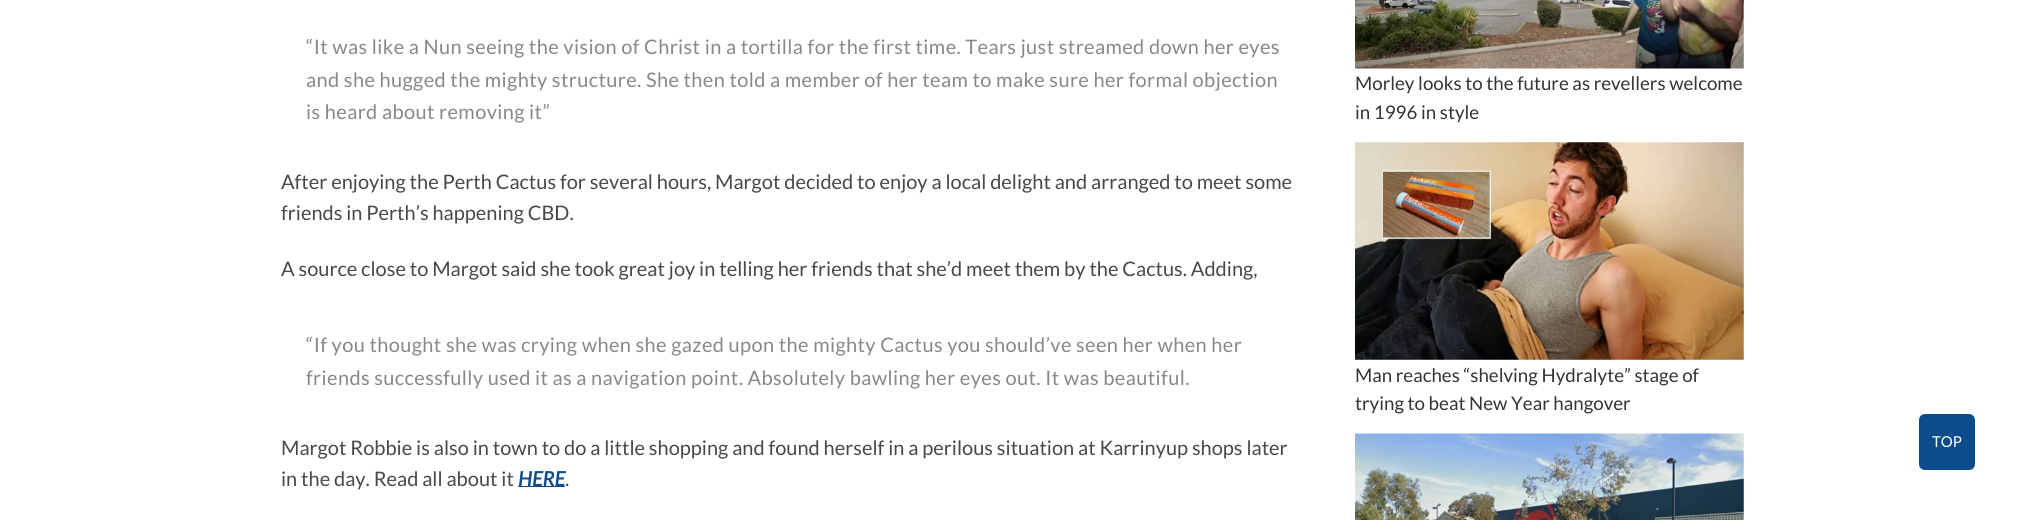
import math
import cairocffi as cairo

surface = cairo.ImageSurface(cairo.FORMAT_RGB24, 2025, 520)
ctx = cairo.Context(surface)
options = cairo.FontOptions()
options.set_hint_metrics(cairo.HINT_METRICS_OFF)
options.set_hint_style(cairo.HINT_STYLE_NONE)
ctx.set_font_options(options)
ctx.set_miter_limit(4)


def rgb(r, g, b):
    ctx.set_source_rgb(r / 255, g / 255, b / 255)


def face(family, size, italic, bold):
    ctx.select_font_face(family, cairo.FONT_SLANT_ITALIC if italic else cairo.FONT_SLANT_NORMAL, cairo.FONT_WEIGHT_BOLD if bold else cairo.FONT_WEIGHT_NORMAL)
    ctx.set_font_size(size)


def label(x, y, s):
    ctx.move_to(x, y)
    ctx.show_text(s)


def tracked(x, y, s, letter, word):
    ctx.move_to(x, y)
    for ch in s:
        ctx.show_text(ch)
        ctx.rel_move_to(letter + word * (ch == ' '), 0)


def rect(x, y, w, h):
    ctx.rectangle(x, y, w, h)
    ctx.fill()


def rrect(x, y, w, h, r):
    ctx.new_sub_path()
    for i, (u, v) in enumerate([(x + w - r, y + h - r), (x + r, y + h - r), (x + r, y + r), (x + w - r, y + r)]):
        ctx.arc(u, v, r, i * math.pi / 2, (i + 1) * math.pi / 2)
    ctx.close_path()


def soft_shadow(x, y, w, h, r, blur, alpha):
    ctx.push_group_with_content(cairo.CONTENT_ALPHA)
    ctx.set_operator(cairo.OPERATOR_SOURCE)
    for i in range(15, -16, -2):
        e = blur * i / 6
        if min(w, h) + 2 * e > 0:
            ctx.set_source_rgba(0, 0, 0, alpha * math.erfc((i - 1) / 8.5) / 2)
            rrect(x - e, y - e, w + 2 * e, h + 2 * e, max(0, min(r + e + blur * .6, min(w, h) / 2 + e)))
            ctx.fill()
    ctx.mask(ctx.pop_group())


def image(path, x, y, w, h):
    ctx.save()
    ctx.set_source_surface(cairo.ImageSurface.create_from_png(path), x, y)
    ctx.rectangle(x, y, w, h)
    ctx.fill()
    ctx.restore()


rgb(255, 255, 255)
ctx.paint()
face('Lato', 20, 0, 0)
rgb(136, 136, 136)
tracked(306, 54, '“It was like a Nun seeing the vision of Christ in a tortilla for the first time. Tears just streamed down her eyes', 0.38, 0)
tracked(306, 87, 'and she hugged the mighty structure. She then told a member of her team to make sure her formal objection', 0.38, 0)
tracked(306, 119, 'is heard about removing it”', 0.38, 0)
rgb(72, 72, 72)
label(281, 189, 'After enjoying the Perth Cactus for several hours, Margot decided to enjoy a local delight and arranged to meet some')
label(281, 220, 'friends in Perth’s happening CBD.')
label(281, 276, 'A source close to Margot said she took great joy in telling her friends that she’d meet them by the Cactus. Adding,')
rgb(136, 136, 136)
tracked(306, 352, '“If you thought she was crying when she gazed upon the mighty Cactus you should’ve seen her when her', 0.38, 0)
tracked(306, 385, 'friends successfully used it as a navigation point. Absolutely bawling her eyes out. It was beautiful.', 0.38, 0)
rgb(72, 72, 72)
label(281, 455, 'Margot Robbie is also in town to do a little shopping and found herself in a perilous situation at Karrinyup shops later')
label(281, 486, 'in the day. Read all about it')
face('Lato', 20, 1, 1)
rgb(12, 76, 138)
label(518, 486, 'HERE')
rect(518, 486, 47, 1)
face('Lato', 20, 0, 0)
rgb(72, 72, 72)
label(565, 486, '.')
image('image0.png', 1355, 0, 389, 69)
face('Lato', 18.75, 0, 0)
rgb(52, 52, 52)
label(1355, 90, 'Morley looks to the future as revellers welcome')
label(1355, 119, 'in 1996 in style')
image('image1.png', 1355, 142, 389, 218)
label(1355, 382, 'Man reaches “shelving Hydralyte” stage of')
label(1355, 410, 'trying to beat New Year hangover')
image('image2.png', 1355, 433, 389, 87)
ctx.save()
ctx.rectangle(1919, 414, 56, 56)
ctx.clip()
rgb(0, 0, 0)
soft_shadow(1919, 416, 56, 57, 6, 2, 0.08)
ctx.restore()
rgb(12, 76, 138)
rrect(1919, 414, 56, 56, 6)
ctx.fill()
face('Lato', 15, 0, 0)
rgb(255, 255, 255)
label(1932, 447, 'TOP')
surface.write_to_png('render.png')
